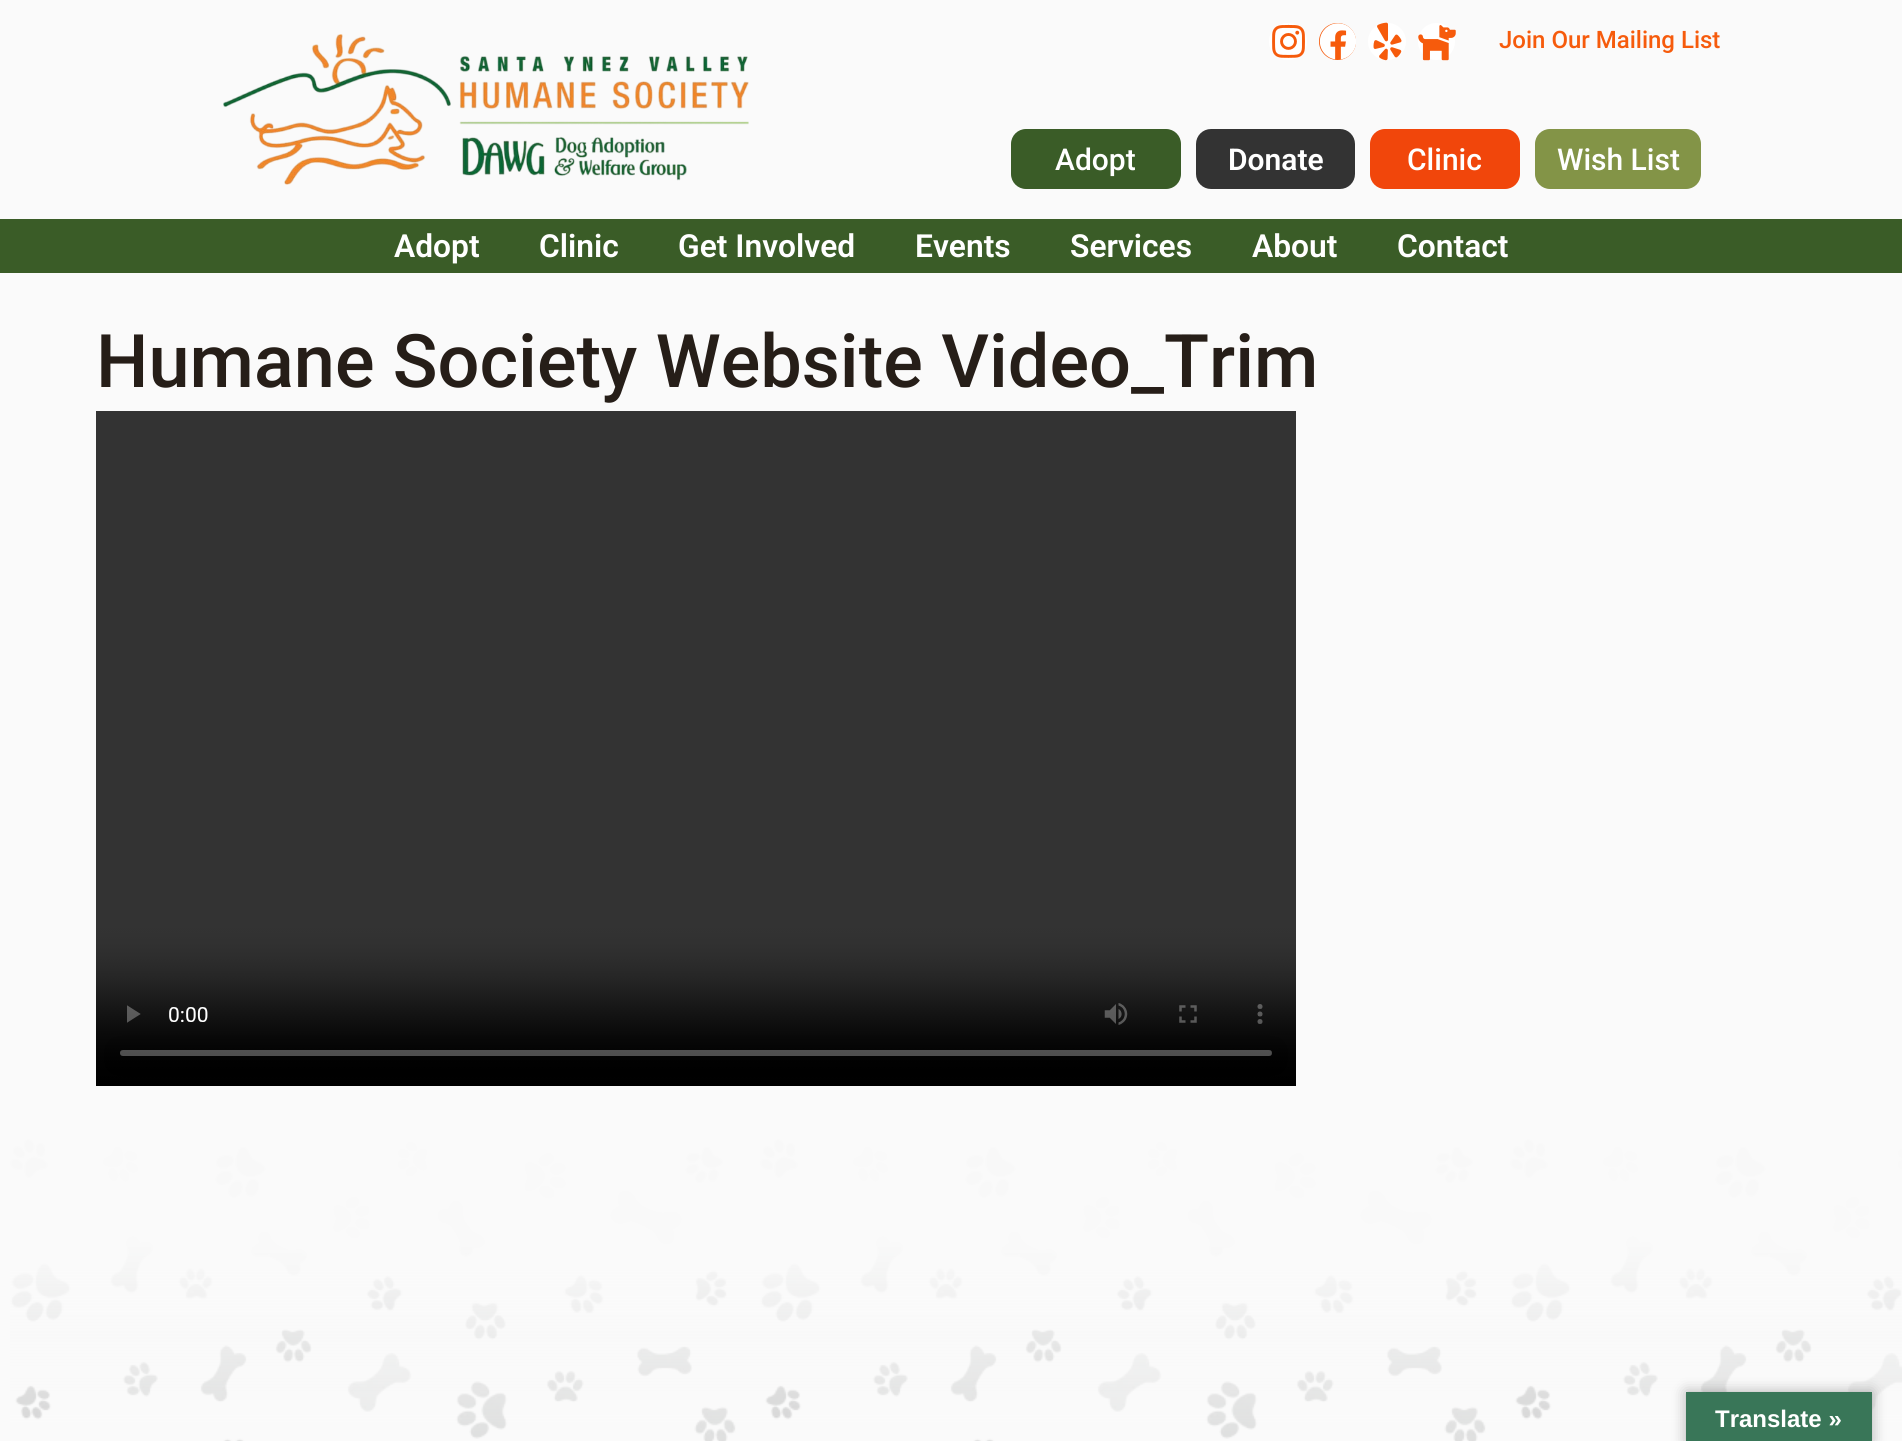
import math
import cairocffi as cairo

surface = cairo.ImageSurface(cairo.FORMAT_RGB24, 1902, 1441)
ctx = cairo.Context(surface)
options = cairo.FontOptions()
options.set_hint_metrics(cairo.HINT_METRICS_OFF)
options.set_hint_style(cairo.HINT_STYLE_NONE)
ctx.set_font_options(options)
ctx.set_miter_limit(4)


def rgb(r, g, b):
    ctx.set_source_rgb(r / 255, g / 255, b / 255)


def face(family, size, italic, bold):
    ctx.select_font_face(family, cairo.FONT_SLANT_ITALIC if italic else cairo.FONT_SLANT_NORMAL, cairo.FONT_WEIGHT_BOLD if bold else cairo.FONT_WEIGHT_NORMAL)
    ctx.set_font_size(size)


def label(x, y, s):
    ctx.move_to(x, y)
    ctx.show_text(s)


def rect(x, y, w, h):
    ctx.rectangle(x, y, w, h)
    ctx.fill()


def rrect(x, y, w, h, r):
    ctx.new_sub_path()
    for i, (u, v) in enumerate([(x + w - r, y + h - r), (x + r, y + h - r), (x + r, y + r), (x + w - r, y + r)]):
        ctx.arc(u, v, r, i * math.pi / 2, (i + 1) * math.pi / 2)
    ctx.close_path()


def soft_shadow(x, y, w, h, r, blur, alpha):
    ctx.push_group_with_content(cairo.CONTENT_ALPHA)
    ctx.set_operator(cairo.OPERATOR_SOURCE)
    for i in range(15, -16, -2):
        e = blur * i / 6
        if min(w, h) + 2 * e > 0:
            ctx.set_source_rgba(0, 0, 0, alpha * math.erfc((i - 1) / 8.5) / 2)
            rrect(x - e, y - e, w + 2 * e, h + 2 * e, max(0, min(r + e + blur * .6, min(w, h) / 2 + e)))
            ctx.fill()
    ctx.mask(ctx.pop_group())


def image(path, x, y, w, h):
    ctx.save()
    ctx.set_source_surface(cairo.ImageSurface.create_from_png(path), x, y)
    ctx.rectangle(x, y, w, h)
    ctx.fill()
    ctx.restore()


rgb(250, 250, 250)
ctx.paint()
image('image0.png', 223, 34, 526, 151)
rgb(255, 255, 255)
rrect(1269, 23, 38, 37, 18.5)
ctx.fill()
image('image1.png', 1272, 24, 33, 34)
rgb(246, 91, 12)
ctx.arc(1337.5, 41.5, 18.5, 0, 2 * math.pi)
ctx.fill()
image('image2.png', 1319, 23, 37, 37)
rgb(255, 255, 255)
rrect(1368, 23, 38, 37, 18.5)
ctx.fill()
image('image3.png', 1373, 22, 29, 39)
ctx.arc(1436.5, 41.5, 18.5, 0, 2 * math.pi)
ctx.fill()
image('image4.png', 1418, 25, 38, 36)
face('Roboto Medium', 24, 0, 0)
rgb(246, 91, 12)
label(1499, 48, 'Join Our Mailing List')
rgb(58, 92, 39)
rrect(1011, 129, 170, 60, 15)
ctx.fill()
face('Roboto Medium', 30, 0, 0)
rgb(255, 255, 255)
label(1055, 170, 'Adopt')
rgb(51, 51, 51)
rrect(1197, 130, 157, 58, 14)
ctx.fill_preserve()
ctx.stroke()
face('Roboto SemiBold', 30, 0, 0)
rgb(255, 255, 255)
label(1228, 170, 'Donate')
rgb(241, 70, 11)
rrect(1370, 129, 150, 60, 15)
ctx.fill()
face('Roboto Medium', 30, 0, 0)
rgb(255, 255, 255)
label(1407, 170, 'Clinic')
rgb(131, 148, 71)
rrect(1535, 129, 166, 60, 15)
ctx.fill()
rgb(255, 255, 255)
label(1557, 170, 'Wish List')
rgb(58, 92, 39)
rect(0, 219, 1902, 54)
face('Roboto SemiBold', 31.75, 0, 0)
rgb(255, 255, 255)
label(394, 257, 'Adopt')
label(539, 257, 'Clinic')
label(678, 257, 'Get Involved')
label(915, 257, 'Events')
label(1070, 257, 'Services')
label(1252, 257, 'About')
label(1397, 257, 'Contact')
face('Roboto Medium', 73.9, 0, 0)
rgb(38, 30, 24)
label(96, 387, 'Humane Society Website Video_Trim')
image('image5.png', 96, 411, 1200, 675)
image('image6.png', 10, 1138, 1892, 303)
gradient = cairo.LinearGradient(951, 1128, 951, 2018)
gradient.add_color_stop_rgba(0.13, 0.98, 0.98, 0.98, 0.99)
gradient.add_color_stop_rgba(1, 0.98, 0.98, 0.98, 0)
ctx.set_source(gradient)
rect(10, 1138, 1892, 303)
rgb(0, 0, 0)
soft_shadow(1686, 1392, 186, 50, 0, 7, 0.3)
rgb(57, 118, 88)
rect(1686, 1392, 186, 49)
face('Liberation Sans', 24, 0, 1)
rgb(255, 255, 255)
label(1715, 1427, 'Translate »')
surface.write_to_png('render.png')
